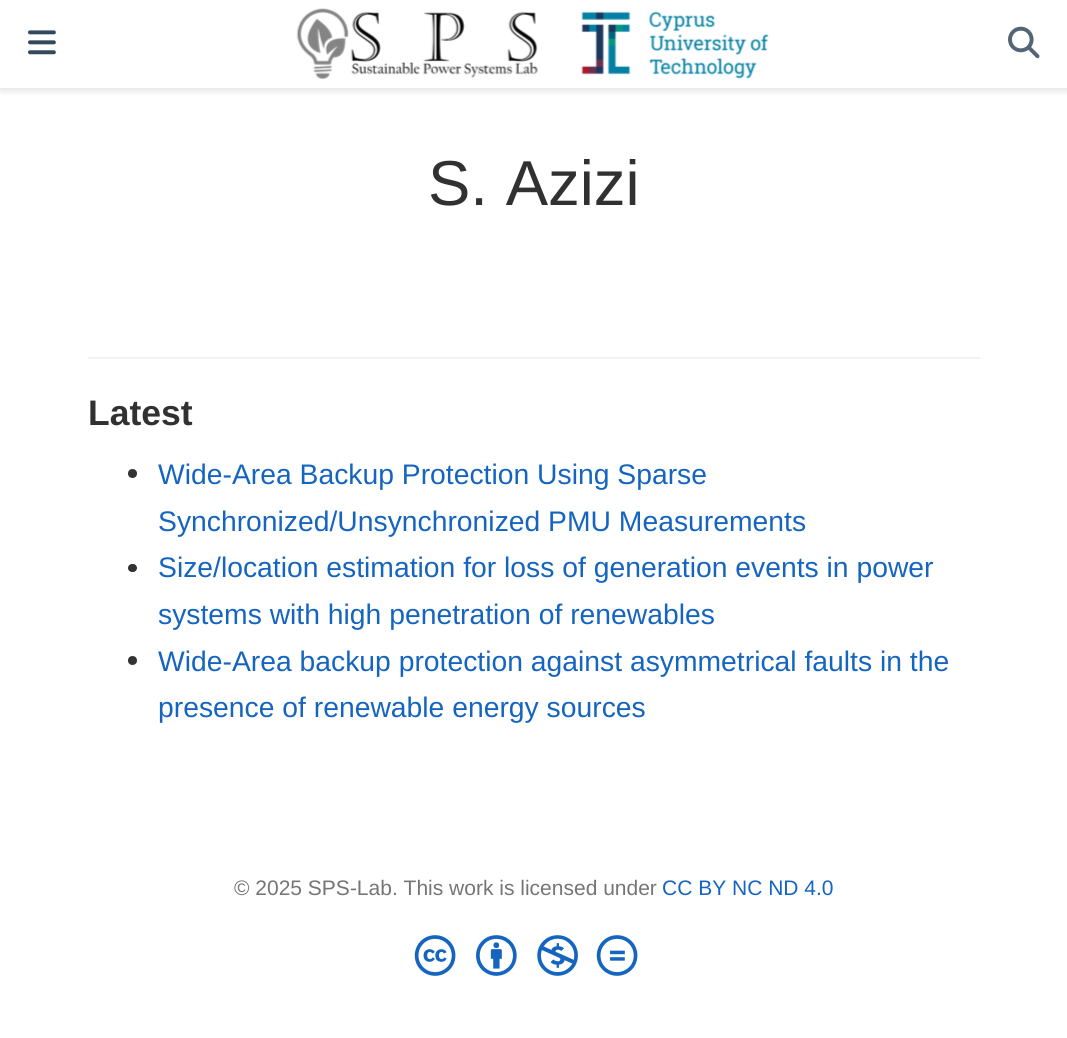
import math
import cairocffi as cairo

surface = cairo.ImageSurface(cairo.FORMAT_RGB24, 1067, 1038)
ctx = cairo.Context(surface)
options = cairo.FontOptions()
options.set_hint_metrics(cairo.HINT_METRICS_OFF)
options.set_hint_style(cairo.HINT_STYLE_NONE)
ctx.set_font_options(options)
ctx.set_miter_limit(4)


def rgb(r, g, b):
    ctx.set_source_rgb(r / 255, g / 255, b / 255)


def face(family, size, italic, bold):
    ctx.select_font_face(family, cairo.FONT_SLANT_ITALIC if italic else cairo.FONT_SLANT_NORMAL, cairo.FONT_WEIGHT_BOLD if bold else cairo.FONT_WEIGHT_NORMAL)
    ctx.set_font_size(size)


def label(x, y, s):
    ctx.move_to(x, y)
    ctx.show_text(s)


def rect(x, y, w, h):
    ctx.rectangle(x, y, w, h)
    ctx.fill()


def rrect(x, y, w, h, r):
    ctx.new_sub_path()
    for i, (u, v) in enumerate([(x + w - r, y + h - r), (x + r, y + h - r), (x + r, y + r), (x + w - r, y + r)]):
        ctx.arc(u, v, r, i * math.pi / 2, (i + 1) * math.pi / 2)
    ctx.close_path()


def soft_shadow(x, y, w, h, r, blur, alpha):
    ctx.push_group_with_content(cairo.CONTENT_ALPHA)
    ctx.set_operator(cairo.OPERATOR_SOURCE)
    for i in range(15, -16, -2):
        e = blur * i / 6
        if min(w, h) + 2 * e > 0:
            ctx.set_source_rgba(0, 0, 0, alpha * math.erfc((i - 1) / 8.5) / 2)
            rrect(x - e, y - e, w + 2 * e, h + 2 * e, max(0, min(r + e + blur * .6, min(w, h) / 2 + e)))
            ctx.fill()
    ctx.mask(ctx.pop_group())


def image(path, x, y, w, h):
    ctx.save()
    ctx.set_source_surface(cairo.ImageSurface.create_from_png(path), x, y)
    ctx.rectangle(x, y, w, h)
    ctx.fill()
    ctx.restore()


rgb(255, 255, 255)
ctx.paint()
rgb(0, 0, 0)
soft_shadow(0, 4, 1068, 87, 0, 3.5, 0.11)
rgb(255, 255, 255)
rect(0, 0, 1067, 88)
image('image0.png', 28, 30, 28, 25)
image('image1.png', 296, 8, 473, 71)
image('image2.png', 1008, 26, 32, 33)
face('Liberation Sans', 63.5, 0, 0)
rgb(49, 49, 49)
label(428, 205, 'S. Azizi')
rgb(242, 242, 242)
rect(88, 357, 892, 2)
face('Liberation Sans', 35.5, 0, 1)
rgb(49, 49, 49)
label(88, 425, 'Latest')
rgb(51, 51, 51)
ctx.new_path()
ctx.arc(132.5, 473.5, 4.5, 0, 2 * math.pi)
ctx.fill()
face('Liberation Sans', 28.3, 0, 0)
rgb(21, 101, 192)
label(158, 484, 'Wide-Area Backup Protection Using Sparse')
label(158, 531, 'Synchronized/Unsynchronized PMU Measurements')
rgb(51, 51, 51)
rrect(128, 564, 9, 8, 4)
ctx.fill()
rgb(21, 101, 192)
label(158, 577, 'Size/location estimation for loss of generation events in power')
label(158, 624, 'systems with high penetration of renewables')
rgb(51, 51, 51)
ctx.new_path()
ctx.arc(132.5, 660.5, 4.5, 0, 2 * math.pi)
ctx.fill()
rgb(21, 101, 192)
label(158, 671, 'Wide-Area backup protection against asymmetrical faults in the')
label(158, 717, 'presence of renewable energy sources')
face('Liberation Sans', 21, 0, 0)
rgb(117, 117, 117)
label(234, 895, '© 2025 SPS-Lab. This work is licensed under')
rgb(21, 101, 192)
label(662, 895, 'CC BY NC ND 4.0')
image('image3.png', 414, 935, 42, 41)
image('image4.png', 476, 935, 41, 41)
image('image5.png', 537, 935, 41, 41)
image('image6.png', 596, 935, 42, 41)
surface.write_to_png('render.png')
